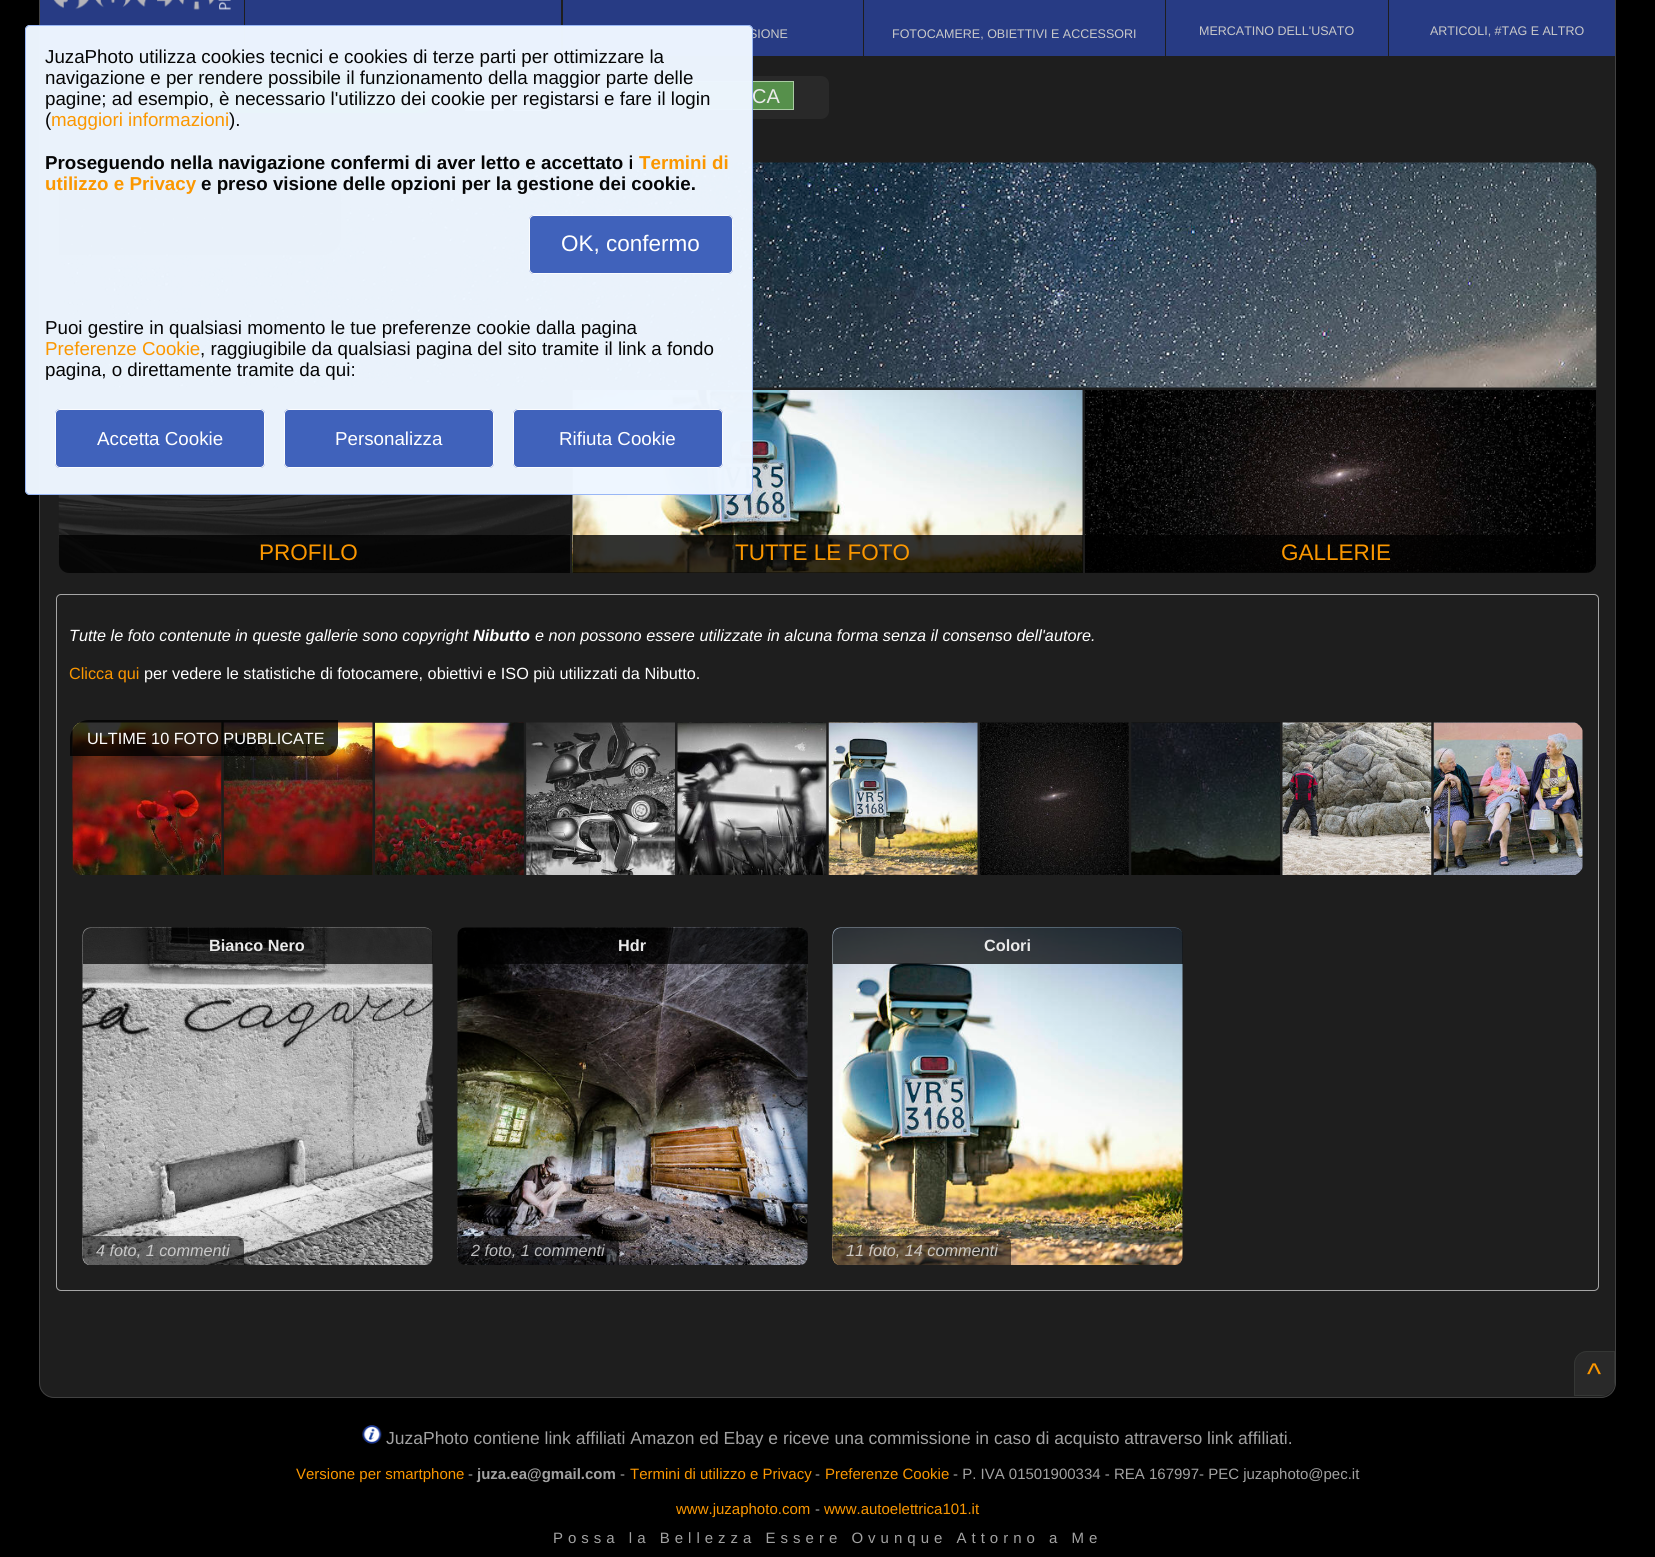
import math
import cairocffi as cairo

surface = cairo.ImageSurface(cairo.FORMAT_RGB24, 1655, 1557)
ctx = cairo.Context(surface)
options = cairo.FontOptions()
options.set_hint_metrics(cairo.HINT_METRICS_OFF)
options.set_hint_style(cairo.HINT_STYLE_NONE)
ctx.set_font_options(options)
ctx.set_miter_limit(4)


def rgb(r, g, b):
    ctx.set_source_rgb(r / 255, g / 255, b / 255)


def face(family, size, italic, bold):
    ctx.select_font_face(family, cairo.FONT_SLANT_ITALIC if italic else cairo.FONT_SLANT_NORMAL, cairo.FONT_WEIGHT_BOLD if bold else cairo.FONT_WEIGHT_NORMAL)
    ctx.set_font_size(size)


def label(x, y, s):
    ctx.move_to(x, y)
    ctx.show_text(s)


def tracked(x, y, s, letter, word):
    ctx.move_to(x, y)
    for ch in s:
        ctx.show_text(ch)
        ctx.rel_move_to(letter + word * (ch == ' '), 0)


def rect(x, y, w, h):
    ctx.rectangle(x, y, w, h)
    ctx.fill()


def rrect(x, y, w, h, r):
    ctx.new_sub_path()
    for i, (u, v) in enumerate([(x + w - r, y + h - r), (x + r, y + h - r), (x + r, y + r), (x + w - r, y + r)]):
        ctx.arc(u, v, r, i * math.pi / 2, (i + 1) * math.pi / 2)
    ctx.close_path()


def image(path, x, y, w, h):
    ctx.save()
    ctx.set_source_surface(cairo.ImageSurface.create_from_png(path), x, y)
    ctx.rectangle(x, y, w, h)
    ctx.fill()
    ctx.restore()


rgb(0, 0, 0)
ctx.paint()
rgb(30, 30, 30)
rrect(39.5, -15.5, 1576, 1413, 14.5)
ctx.fill_preserve()
rgb(66, 66, 66)
ctx.set_line_width(1)
ctx.stroke()
ctx.save()
rrect(40, -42, 1575, 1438, 14)
ctx.clip()
rgb(39, 59, 132)
ctx.new_path()
ctx.move_to(42, -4)
ctx.line_to(244, -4)
ctx.line_to(244, 56)
ctx.line_to(38, 56)
ctx.line_to(38, 0)
ctx.curve_to(38, -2, 40, -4, 42, -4)
ctx.close_path()
ctx.fill()
ctx.restore()
image('image0.png', 53, 0, 178, 10)
rgb(39, 59, 132)
rect(245, 0, 316, 56)
rect(563, 0, 300, 56)
face('Liberation Sans', 12.5, 0, 0)
rgb(201, 201, 201)
label(749, 38, 'SIONE')
rgb(39, 59, 132)
rect(864, 0, 301, 56)
rgb(201, 201, 201)
label(892, 38, 'FOTOCAMERE, OBIETTIVI E ACCESSORI')
rgb(39, 59, 132)
rect(1166, 0, 222, 56)
rgb(201, 201, 201)
label(1199, 35, 'MERCATINO DELL\'USATO')
rgb(39, 59, 132)
rect(1389, 0, 226, 56)
rgb(201, 201, 201)
label(1430, 35, 'ARTICOLI, #TAG E ALTRO')
rgb(41, 41, 41)
ctx.new_path()
ctx.move_to(66, 75)
ctx.line_to(168, 75)
ctx.line_to(168, 113)
ctx.line_to(66, 113)
ctx.curve_to(61.5, 113, 58, 109.5, 58, 105)
ctx.line_to(58, 83)
ctx.curve_to(58, 78.5, 61.5, 75, 66, 75)
ctx.close_path()
ctx.fill()
image('image1.png', 133, 83, 14, 14)
rgb(0, 128, 0)
ctx.new_path()
ctx.move_to(169, 75)
ctx.line_to(423, 75)
ctx.curve_to(427.5, 75, 431, 78.5, 431, 83)
ctx.line_to(431, 105)
ctx.curve_to(431, 109.5, 427.5, 113, 423, 113)
ctx.line_to(169, 113)
ctx.close_path()
ctx.fill()
rgb(41, 41, 41)
rrect(448, 76, 381, 43, 8)
ctx.fill()
rgb(234, 234, 234)
ctx.rectangle(465.5, 81.5, 38, 29)
ctx.fill_preserve()
rgb(187, 187, 187)
ctx.stroke()
rgb(4, 4, 4)
ctx.rectangle(513.5, 81.5, 37, 29)
ctx.fill_preserve()
rgb(187, 187, 187)
ctx.stroke()
rgb(129, 150, 211)
rect(560, 81, 108, 1)
rect(560, 109, 26, 1)
rect(560, 81, 1, 29)
rgb(54, 80, 157)
rect(561, 82, 107, 27)
rgb(129, 150, 211)
rect(666, 81, 1, 29)
rgb(86, 144, 75)
ctx.rectangle(676.5, 81.5, 117, 28)
ctx.fill_preserve()
rgb(170, 204, 163)
ctx.stroke()
rgb(129, 150, 211)
rect(586, 109, 82, 1)
image('image2.png', 58, 162, 1539, 226)
ctx.set_source_rgba(0, 0, 0, 0.8)
ctx.new_path()
ctx.move_to(68, 163)
ctx.line_to(341, 163)
ctx.line_to(341, 236)
ctx.curve_to(341, 246.5, 332.5, 255, 322, 255)
ctx.line_to(59, 255)
ctx.line_to(59, 172)
ctx.curve_to(59, 167, 63, 163, 68, 163)
ctx.close_path()
ctx.fill()
image('image3.png', 58, 390, 512, 183)
image('image4.png', 572, 390, 511, 183)
ctx.set_source_rgba(0.929, 0.961, 1, 0.98)
rrect(25, 25, 728, 470, 5)
ctx.fill()
rrect(25.5, 25.5, 727, 469, 4.5)
ctx.set_source_rgba(0.592, 0.71, 0.957, 0.98)
ctx.stroke()
face('Liberation Sans', 18.75, 0, 0)
rgb(5, 5, 5)
label(45, 63, 'JuzaPhoto utilizza cookies tecnici e cookies di terze parti per ottimizzare la')
label(45, 84, 'navigazione e per rendere possibile il funzionamento della maggior parte delle')
label(45, 105, 'pagine; ad esempio, è necessario l\'utilizzo dei cookie per registarsi e fare il login')
label(45, 126, '(')
rgb(251, 151, 0)
label(51, 126, 'maggiori informazioni')
rgb(5, 5, 5)
label(229, 126, ').')
face('Liberation Sans', 18.75, 0, 1)
label(45, 169, 'Proseguendo nella navigazione confermi di aver letto e accettato i')
rgb(251, 151, 0)
label(639, 169, 'Termini di')
label(45, 190, 'utilizzo e Privacy')
rgb(5, 5, 5)
label(201, 190, 'e preso visione delle opzioni per la gestione dei cookie.')
ctx.set_source_rgba(0.239, 0.373, 0.729, 0.98)
rrect(529, 215, 204, 59, 5)
ctx.fill()
rrect(529.5, 215.5, 203, 58, 4.5)
ctx.set_source_rgba(1, 1, 1, 0.98)
ctx.stroke()
face('Liberation Sans', 22.5, 0, 0)
rgb(255, 255, 255)
label(561, 251, 'OK, confermo')
face('Liberation Sans', 18.75, 0, 0)
rgb(5, 5, 5)
label(45, 334, 'Puoi gestire in qualsiasi momento le tue preferenze cookie dalla pagina')
rgb(251, 151, 0)
label(45, 355, 'Preferenze Cookie')
rgb(5, 5, 5)
label(200, 355, ', raggiugibile da qualsiasi pagina del sito tramite il link a fondo')
label(45, 376, 'pagina, o direttamente tramite da qui:')
rgb(64, 98, 187)
rrect(55, 409, 210, 59, 5)
ctx.fill()
rrect(55.5, 409.5, 209, 58, 4.5)
ctx.set_source_rgba(1, 1, 1, 0.98)
ctx.stroke()
rgb(255, 255, 255)
label(97, 445, 'Accetta Cookie')
rgb(64, 98, 187)
rrect(284, 409, 210, 59, 5)
ctx.fill()
rrect(284.5, 409.5, 209, 58, 4.5)
ctx.set_source_rgba(1, 1, 1, 0.98)
ctx.stroke()
rgb(255, 255, 255)
label(335, 445, 'Personalizza')
ctx.set_source_rgba(0.239, 0.373, 0.729, 0.98)
rrect(513, 409, 210, 59, 5)
ctx.fill()
rrect(513.5, 409.5, 209, 58, 4.5)
ctx.set_source_rgba(1, 1, 1, 0.98)
ctx.stroke()
rgb(255, 255, 255)
label(559, 445, 'Rifiuta Cookie')
face('Liberation Sans', 20, 0, 0)
rgb(234, 234, 234)
label(752, 103, 'CA')
ctx.set_source_rgba(0, 0, 0, 0.8)
ctx.new_path()
ctx.move_to(59, 535)
ctx.line_to(570, 535)
ctx.line_to(570, 573)
ctx.line_to(69, 573)
ctx.curve_to(63.5, 573, 59, 568.5, 59, 563)
ctx.close_path()
ctx.fill()
face('Liberation Sans', 22.5, 0, 0)
rgb(251, 151, 0)
label(259, 560, 'PROFILO')
ctx.set_source_rgba(0, 0, 0, 0.8)
rect(573, 535, 510, 38)
rgb(251, 151, 0)
label(735, 560, 'TUTTE LE FOTO')
image('image5.png', 1085, 390, 511, 183)
ctx.set_source_rgba(0, 0, 0, 0.8)
ctx.new_path()
ctx.move_to(1085, 535)
ctx.line_to(1596, 535)
ctx.line_to(1596, 563)
ctx.curve_to(1596, 568.5, 1591.5, 573, 1586, 573)
ctx.line_to(1085, 573)
ctx.close_path()
ctx.fill()
rgb(251, 151, 0)
label(1281, 560, 'GALLERIE')
rrect(56.5, 594.5, 1542, 696, 4.5)
rgb(166, 166, 166)
ctx.stroke()
face('Liberation Sans', 16.25, 1, 0)
rgb(255, 255, 255)
label(69, 641, 'Tutte le foto contenute in queste gallerie sono copyright')
face('Liberation Sans', 16.25, 1, 1)
label(473, 641, 'Nibutto')
face('Liberation Sans', 16.25, 1, 0)
label(535, 641, 'e non possono essere utilizzate in alcuna forma senza il consenso dell\'autore.')
face('Liberation Sans', 16.25, 0, 0)
rgb(251, 151, 0)
label(69, 679, 'Clicca qui')
rgb(255, 255, 255)
label(144, 679, 'per vedere le statistiche di fotocamere, obiettivi e ISO più utilizzati da Nibutto.')
image('image6.png', 72, 722, 150, 153)
image('image7.png', 223, 722, 150, 153)
image('image8.png', 375, 722, 149, 153)
image('image9.png', 526, 722, 149, 153)
image('image10.png', 677, 722, 150, 153)
image('image11.png', 828, 722, 150, 153)
image('image12.png', 980, 722, 149, 153)
image('image13.png', 1131, 722, 149, 153)
image('image14.png', 1282, 722, 150, 153)
image('image15.png', 1433, 722, 150, 153)
ctx.set_source_rgba(0, 0, 0, 0.8)
ctx.new_path()
ctx.move_to(89, 720)
ctx.line_to(338, 720)
ctx.line_to(338, 743)
ctx.curve_to(338, 750, 332, 756, 325, 756)
ctx.line_to(70, 756)
ctx.line_to(70, 739)
ctx.curve_to(70, 728.5, 78.5, 720, 89, 720)
ctx.close_path()
ctx.fill()
rgb(255, 255, 255)
label(87, 744, 'ULTIME 10 FOTO PUBBLICATE')
image('image16.png', 82, 927, 351, 338)
ctx.set_source_rgba(0, 0, 0, 0.72)
ctx.new_path()
ctx.move_to(91, 928)
ctx.line_to(425, 928)
ctx.curve_to(429.5, 928, 433, 931.5, 433, 936)
ctx.line_to(433, 964)
ctx.line_to(83, 964)
ctx.line_to(83, 936)
ctx.curve_to(83, 931.5, 86.5, 928, 91, 928)
ctx.close_path()
ctx.fill()
face('Liberation Sans', 16.25, 0, 1)
rgb(234, 234, 234)
label(209, 951, 'Bianco Nero')
ctx.set_source_rgba(0, 0, 0, 0.56)
ctx.new_path()
ctx.move_to(83, 1236)
ctx.line_to(236, 1236)
ctx.curve_to(240.5, 1236, 244, 1239.5, 244, 1244)
ctx.line_to(244, 1265)
ctx.line_to(91, 1265)
ctx.curve_to(86.5, 1265, 83, 1261.5, 83, 1257)
ctx.close_path()
ctx.fill()
face('Liberation Sans', 16.25, 1, 0)
rgb(201, 201, 201)
label(96, 1256, '4 foto, 1 commenti')
image('image17.png', 457, 927, 351, 338)
ctx.set_source_rgba(0, 0, 0, 0.72)
ctx.new_path()
ctx.move_to(466, 928)
ctx.line_to(800, 928)
ctx.curve_to(804.5, 928, 808, 931.5, 808, 936)
ctx.line_to(808, 964)
ctx.line_to(458, 964)
ctx.line_to(458, 936)
ctx.curve_to(458, 931.5, 461.5, 928, 466, 928)
ctx.close_path()
ctx.fill()
face('Liberation Sans', 16.25, 0, 1)
rgb(234, 234, 234)
label(618, 951, 'Hdr')
ctx.set_source_rgba(0, 0, 0, 0.56)
ctx.new_path()
ctx.move_to(458, 1236)
ctx.line_to(611, 1236)
ctx.curve_to(615.5, 1236, 619, 1239.5, 619, 1244)
ctx.line_to(619, 1265)
ctx.line_to(466, 1265)
ctx.curve_to(461.5, 1265, 458, 1261.5, 458, 1257)
ctx.close_path()
ctx.fill()
face('Liberation Sans', 16.25, 1, 0)
rgb(188, 188, 189)
label(471, 1256, '2 foto, 1 commenti')
image('image18.png', 832, 927, 351, 338)
ctx.set_source_rgba(0, 0, 0, 0.72)
ctx.new_path()
ctx.move_to(841, 928)
ctx.line_to(1175, 928)
ctx.curve_to(1179.5, 928, 1183, 931.5, 1183, 936)
ctx.line_to(1183, 964)
ctx.line_to(833, 964)
ctx.line_to(833, 936)
ctx.curve_to(833, 931.5, 836.5, 928, 841, 928)
ctx.close_path()
ctx.fill()
face('Liberation Sans', 16.25, 0, 1)
rgb(234, 234, 234)
label(984, 951, 'Colori')
ctx.set_source_rgba(0, 0, 0, 0.56)
ctx.new_path()
ctx.move_to(833, 1236)
ctx.line_to(1003, 1236)
ctx.curve_to(1007.5, 1236, 1011, 1239.5, 1011, 1244)
ctx.line_to(1011, 1265)
ctx.line_to(841, 1265)
ctx.curve_to(836.5, 1265, 833, 1261.5, 833, 1257)
ctx.close_path()
ctx.fill()
face('Liberation Sans', 16.25, 1, 0)
rgb(204, 200, 194)
label(846, 1256, '11 foto, 14 commenti')
rgb(41, 41, 41)
ctx.new_path()
ctx.move_to(1587, 1351)
ctx.line_to(1615, 1351)
ctx.line_to(1615, 1382)
ctx.curve_to(1615, 1389.5, 1608.5, 1396, 1601, 1396)
ctx.line_to(1574, 1396)
ctx.line_to(1574, 1364)
ctx.curve_to(1574, 1357, 1580, 1351, 1587, 1351)
ctx.close_path()
ctx.fill()
rgb(53, 55, 53)
ctx.new_path()
ctx.move_to(1587, 1351)
ctx.curve_to(1580, 1351, 1574, 1357, 1574, 1364)
ctx.line_to(1574, 1396)
ctx.line_to(1601, 1396)
ctx.line_to(1606, 1395)
ctx.line_to(1575, 1395)
ctx.line_to(1575, 1364)
ctx.curve_to(1575, 1357, 1580, 1352, 1587, 1352)
ctx.line_to(1614, 1352)
ctx.line_to(1614, 1387)
ctx.line_to(1615, 1382)
ctx.line_to(1615, 1351)
ctx.close_path()
ctx.fill()
face('Liberation Sans', 30, 0, 0)
rgb(251, 151, 0)
label(1587, 1384, '^')
image('image19.png', 362, 1425, 20, 19)
face('Liberation Sans', 17.5, 0, 0)
rgb(162, 162, 162)
label(386, 1444, 'JuzaPhoto contiene link affiliati Amazon ed Ebay e riceve una commissione in caso di acquisto attraverso link affiliati.')
face('Liberation Sans', 15, 0, 0)
rgb(251, 151, 0)
label(296, 1479, 'Versione per smartphone')
rgb(162, 162, 162)
label(468, 1479, '-')
face('Liberation Sans', 15, 0, 1)
label(477, 1479, 'juza.ea@gmail.com')
face('Liberation Sans', 15, 0, 0)
label(620, 1479, '-')
rgb(251, 151, 0)
label(630, 1479, 'Termini di utilizzo e Privacy')
rgb(162, 162, 162)
label(815, 1479, '-')
rgb(251, 151, 0)
label(825, 1479, 'Preferenze Cookie')
rgb(162, 162, 162)
label(953, 1479, '- P. IVA 01501900334 - REA 167997- PEC juzaphoto@pec.it')
rgb(251, 151, 0)
label(676, 1514, 'www.juzaphoto.com')
rgb(162, 162, 162)
label(815, 1514, '-')
rgb(251, 151, 0)
label(824, 1514, 'www.autoelettrica101.it')
rgb(162, 162, 162)
tracked(553, 1543, 'Possa la Bellezza Essere Ovunque Attorno a Me', 5, 0)
surface.write_to_png('render.png')
